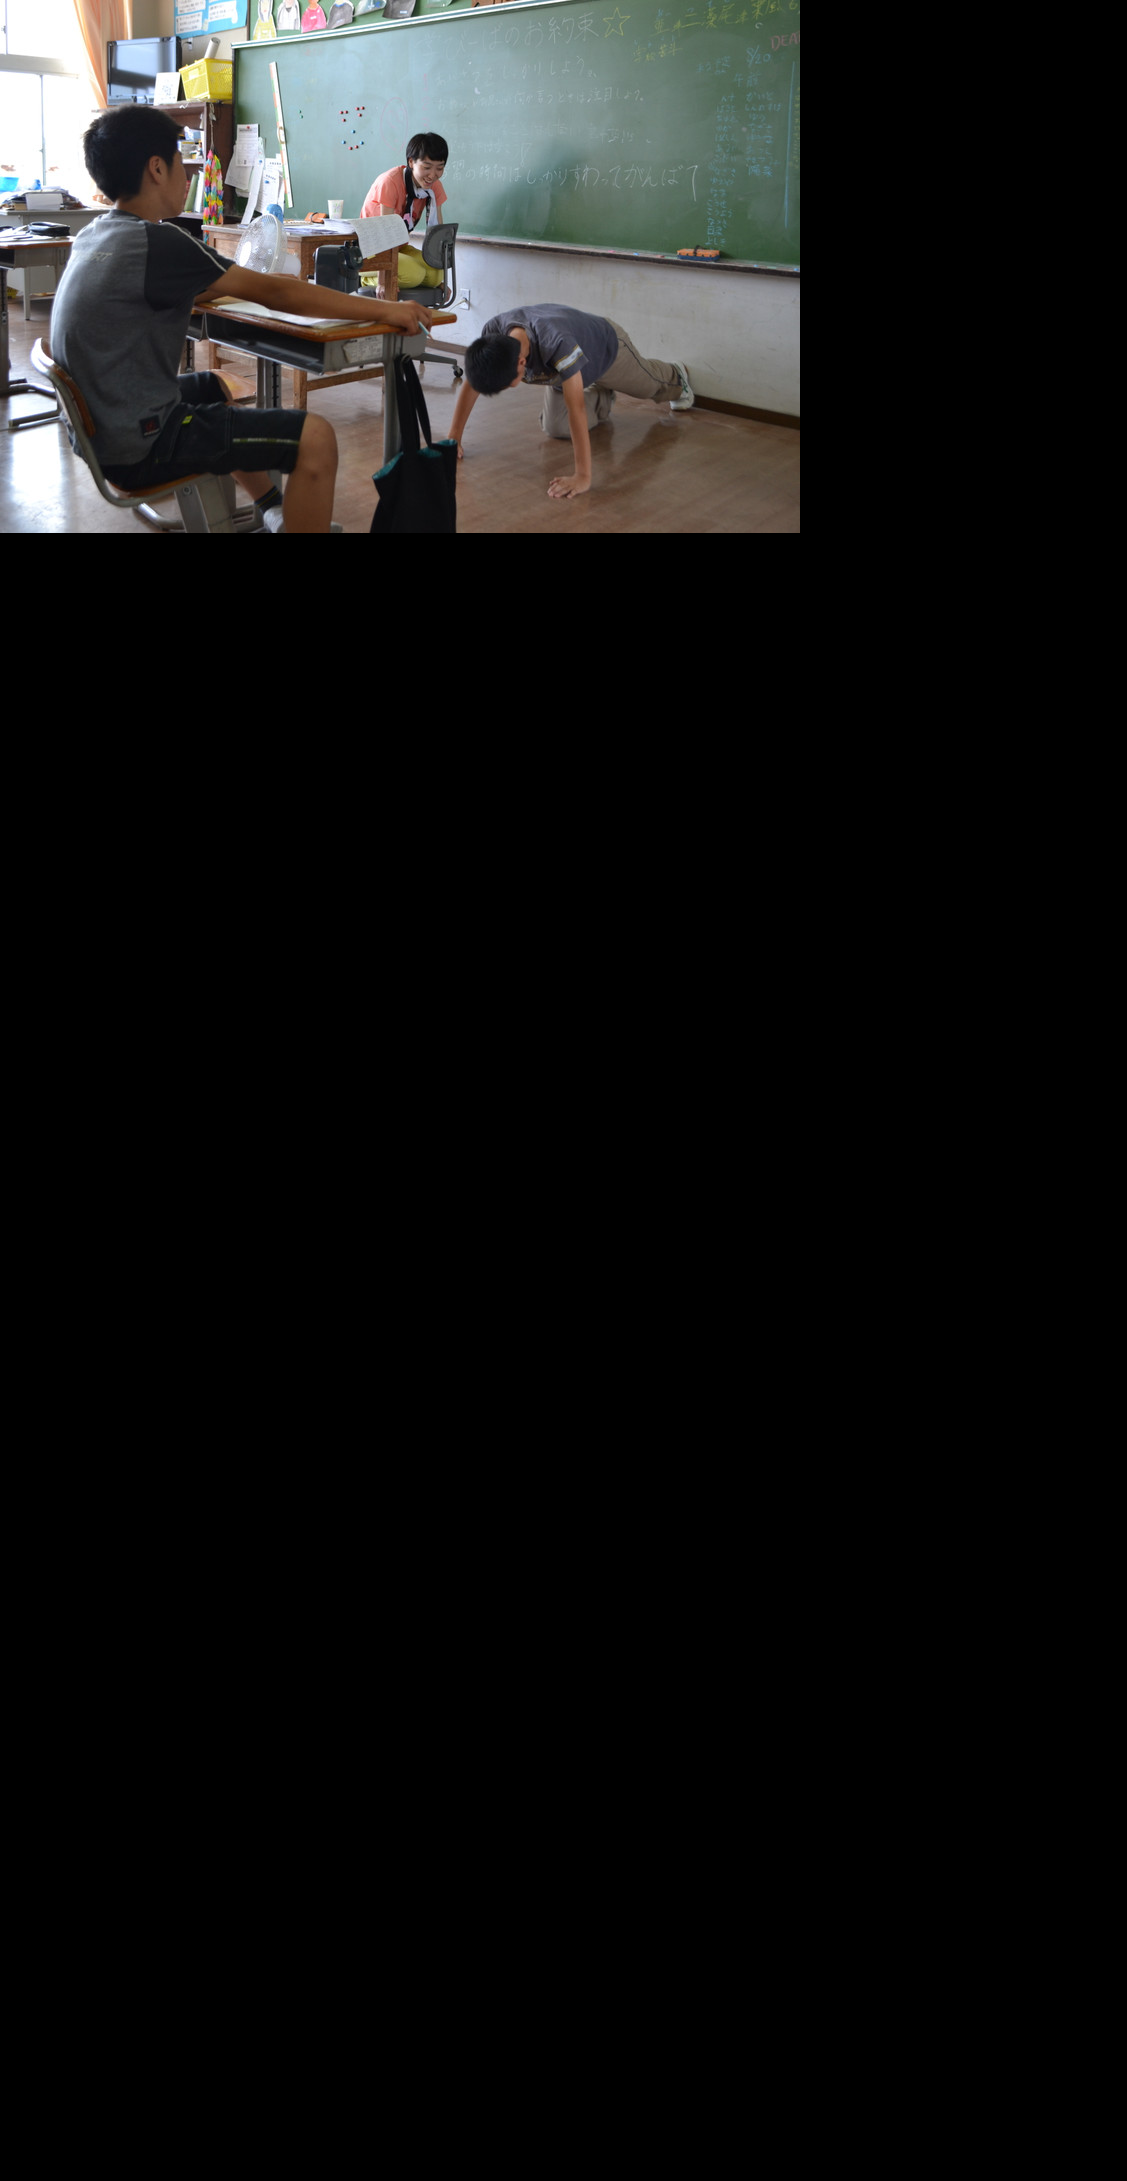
import math
import cairocffi as cairo

surface = cairo.ImageSurface(cairo.FORMAT_RGB24, 1127, 2181)
ctx = cairo.Context(surface)
options = cairo.FontOptions()
options.set_hint_metrics(cairo.HINT_METRICS_OFF)
options.set_hint_style(cairo.HINT_STYLE_NONE)
ctx.set_font_options(options)
ctx.set_miter_limit(4)


def rgb(r, g, b):
    ctx.set_source_rgb(r / 255, g / 255, b / 255)


def image(path, x, y, w, h):
    ctx.save()
    ctx.set_source_surface(cairo.ImageSurface.create_from_png(path), x, y)
    ctx.rectangle(x, y, w, h)
    ctx.fill()
    ctx.restore()


rgb(0, 0, 0)
ctx.paint()
image('image0.png', 0, 0, 800, 533)
surface.write_to_png('render.png')
